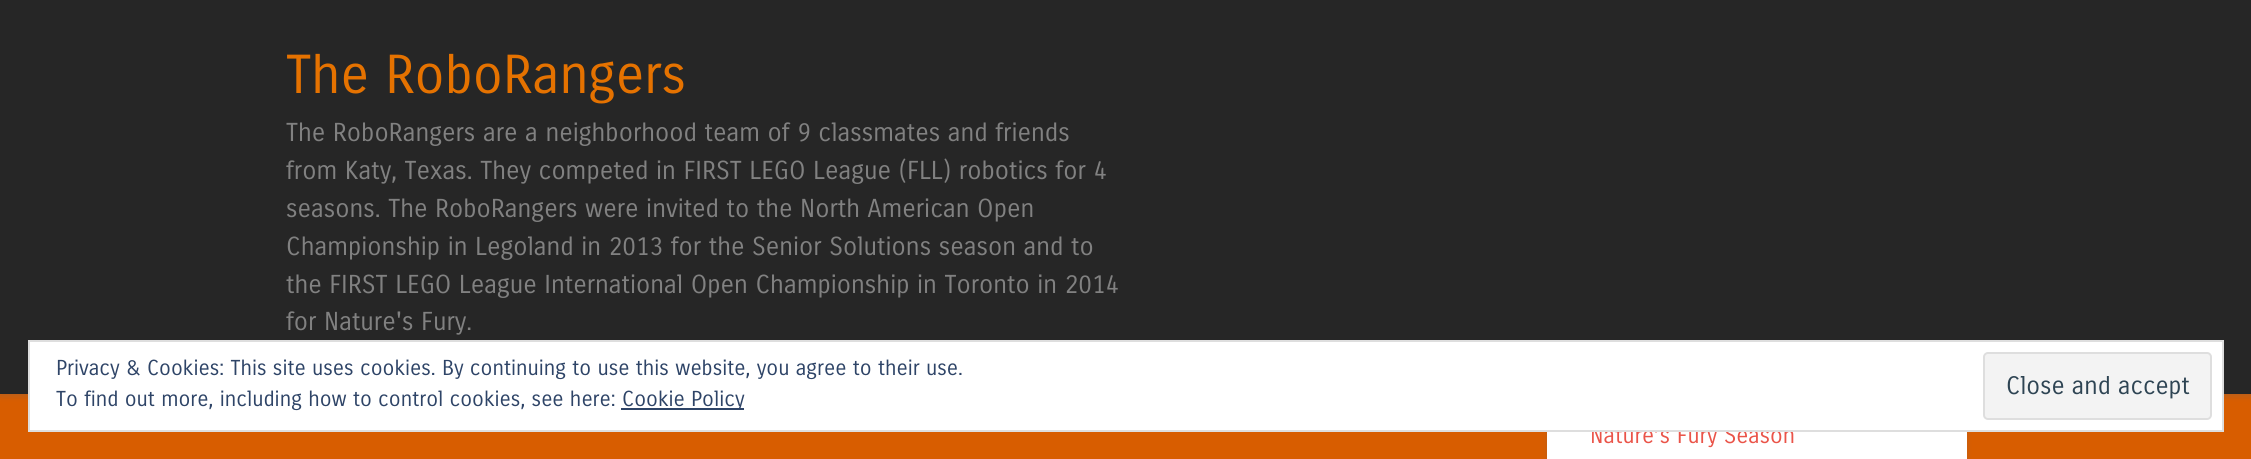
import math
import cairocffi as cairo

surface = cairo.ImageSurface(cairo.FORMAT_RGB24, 2251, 459)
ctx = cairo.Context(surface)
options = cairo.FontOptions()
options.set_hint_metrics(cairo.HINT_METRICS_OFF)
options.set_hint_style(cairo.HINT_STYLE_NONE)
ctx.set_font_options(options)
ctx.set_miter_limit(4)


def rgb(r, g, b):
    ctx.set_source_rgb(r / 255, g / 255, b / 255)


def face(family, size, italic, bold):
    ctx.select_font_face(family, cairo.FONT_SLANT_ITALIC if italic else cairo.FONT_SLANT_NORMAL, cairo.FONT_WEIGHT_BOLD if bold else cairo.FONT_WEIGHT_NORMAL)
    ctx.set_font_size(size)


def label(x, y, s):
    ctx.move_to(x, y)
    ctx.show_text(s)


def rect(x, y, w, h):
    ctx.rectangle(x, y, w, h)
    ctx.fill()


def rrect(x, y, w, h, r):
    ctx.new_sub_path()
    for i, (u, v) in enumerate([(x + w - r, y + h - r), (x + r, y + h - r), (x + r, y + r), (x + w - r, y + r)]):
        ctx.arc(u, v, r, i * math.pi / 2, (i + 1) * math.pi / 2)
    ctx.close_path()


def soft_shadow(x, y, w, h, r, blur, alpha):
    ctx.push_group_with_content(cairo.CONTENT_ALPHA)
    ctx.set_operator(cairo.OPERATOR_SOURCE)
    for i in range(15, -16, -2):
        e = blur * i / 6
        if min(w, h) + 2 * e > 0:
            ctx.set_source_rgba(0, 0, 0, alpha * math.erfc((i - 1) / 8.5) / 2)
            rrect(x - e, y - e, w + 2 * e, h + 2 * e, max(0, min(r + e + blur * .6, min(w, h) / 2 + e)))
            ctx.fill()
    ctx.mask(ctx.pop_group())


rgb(216, 93, 0)
ctx.paint()
rgb(100, 100, 100)
soft_shadow(0, 4, 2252, 393, 0, 2.5, 0.25)
soft_shadow(1547, 294, 420, 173, 0, 2.5, 0.25)
rgb(38, 38, 38)
rect(0, 0, 2251, 394)
face('Carrois Gothic', 53.25, 0, 0)
rgb(229, 114, 0)
label(286, 93, 'The RoboRangers')
face('Carrois Gothic', 25.2, 0, 0)
rgb(129, 129, 129)
label(286, 141, 'The RoboRangers are a neighborhood team of 9 classmates and friends')
label(286, 179, 'from Katy, Texas. They competed in FIRST LEGO League (FLL) robotics for 4')
label(286, 217, 'seasons. The RoboRangers were invited to the North American Open')
label(286, 255, 'Championship in Legoland in 2013 for the Senior Solutions season and to')
label(286, 293, 'the FIRST LEGO League International Open Championship in Toronto in 2014')
label(286, 330, 'for Nature\'s Fury.')
rgb(255, 255, 255)
rect(1547, 432, 420, 27)
face('Carrois Gothic', 22.5, 0, 0)
rgb(234, 84, 73)
label(1590, 443, 'Nature’s Fury Season')
rgb(255, 255, 255)
ctx.rectangle(29, 341, 2194, 90)
ctx.fill_preserve()
rgb(222, 222, 222)
ctx.stroke()
face('Carrois Gothic', 21, 0, 0)
rgb(46, 68, 103)
label(56, 375, 'Privacy & Cookies: This site uses cookies. By continuing to use this website, you agree to their use.')
label(56, 406, 'To find out more, including how to control cookies, see here:')
rect(621, 408, 123, 2)
label(622, 406, 'Cookie Policy')
rgb(243, 243, 243)
rrect(1984, 353, 227, 66, 4)
ctx.fill_preserve()
rgb(222, 222, 222)
ctx.stroke()
face('Carrois Gothic', 24.5, 0, 0)
rgb(46, 68, 83)
label(2006, 394, 'Close and accept')
surface.write_to_png('render.png')
